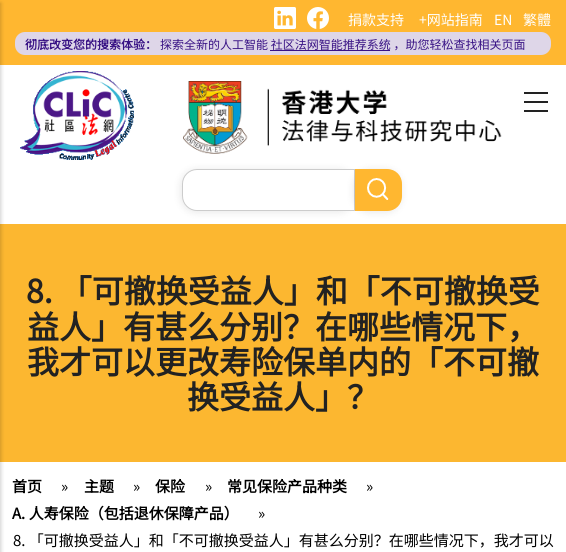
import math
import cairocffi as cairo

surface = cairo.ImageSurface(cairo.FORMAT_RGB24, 566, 552)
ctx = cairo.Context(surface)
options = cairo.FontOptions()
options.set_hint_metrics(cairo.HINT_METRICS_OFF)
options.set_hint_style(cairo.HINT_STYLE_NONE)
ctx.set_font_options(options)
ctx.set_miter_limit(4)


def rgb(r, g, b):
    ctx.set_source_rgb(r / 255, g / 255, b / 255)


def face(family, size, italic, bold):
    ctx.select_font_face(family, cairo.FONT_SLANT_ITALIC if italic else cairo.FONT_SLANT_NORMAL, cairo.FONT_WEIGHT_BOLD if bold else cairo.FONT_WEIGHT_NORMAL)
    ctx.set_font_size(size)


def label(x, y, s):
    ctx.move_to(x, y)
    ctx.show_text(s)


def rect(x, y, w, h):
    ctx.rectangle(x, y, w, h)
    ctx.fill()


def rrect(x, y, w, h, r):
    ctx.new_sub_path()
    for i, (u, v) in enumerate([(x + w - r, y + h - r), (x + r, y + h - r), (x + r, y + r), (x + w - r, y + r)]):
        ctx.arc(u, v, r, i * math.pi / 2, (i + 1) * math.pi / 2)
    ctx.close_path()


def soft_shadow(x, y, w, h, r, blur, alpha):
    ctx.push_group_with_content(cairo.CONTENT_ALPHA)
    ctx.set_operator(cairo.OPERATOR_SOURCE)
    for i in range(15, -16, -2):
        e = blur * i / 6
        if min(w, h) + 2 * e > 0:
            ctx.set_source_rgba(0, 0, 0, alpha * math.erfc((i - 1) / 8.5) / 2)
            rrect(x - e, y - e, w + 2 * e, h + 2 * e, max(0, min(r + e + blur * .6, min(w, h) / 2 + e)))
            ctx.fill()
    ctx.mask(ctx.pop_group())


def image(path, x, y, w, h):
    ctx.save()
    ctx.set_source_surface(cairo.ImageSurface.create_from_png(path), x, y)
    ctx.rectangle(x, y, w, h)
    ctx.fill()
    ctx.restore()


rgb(255, 255, 255)
ctx.paint()
rgb(255, 183, 48)
rect(0, 0, 566, 65)
rgb(0, 0, 0)
soft_shadow(181, 170, 173, 42, 15, 4, 0.1)
rgb(255, 255, 255)
ctx.new_path()
ctx.move_to(197, 169.5)
ctx.line_to(354.5, 169.5)
ctx.line_to(354.5, 210.5)
ctx.line_to(197, 210.5)
ctx.curve_to(189, 210.5, 182.5, 204, 182.5, 196)
ctx.line_to(182.5, 184)
ctx.curve_to(182.5, 176, 189, 169.5, 197, 169.5)
ctx.close_path()
ctx.fill_preserve()
rgb(204, 204, 204)
ctx.set_line_width(1)
ctx.stroke()
rgb(0, 0, 0)
soft_shadow(354, 170, 47, 42, 15, 4, 0.1)
rgb(252, 183, 48)
rect(0, 224, 566, 238)
rgb(0, 0, 0)
soft_shadow(-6, 3, 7, 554, 0, 2, 0.2)
rgb(34, 34, 34)
rect(524, 92, 24, 2)
rect(524, 101, 24, 2)
rect(524, 110, 24, 2)
image('image0.png', 20, 71, 114, 89)
image('image1.png', 183, 81, 319, 73)
rgb(255, 183, 48)
ctx.new_path()
ctx.move_to(355, 169)
ctx.line_to(387, 169)
ctx.curve_to(395.5, 169, 402, 175.5, 402, 184)
ctx.line_to(402, 196)
ctx.curve_to(402, 204.5, 395.5, 211, 387, 211)
ctx.line_to(355, 211)
ctx.close_path()
ctx.fill()
image('image2.png', 367, 178, 22, 22)
image('image3.png', 274, 7, 22, 22)
image('image4.png', 307, 7, 22, 22)
face('Noto Sans SC Thin', 14, 0, 0)
rgb(255, 255, 255)
label(348, 25, '捐款支持')
label(419, 25, '+网站指南')
label(494, 25, 'EN')
label(523, 25, '繁體')
rgb(222, 214, 232)
rrect(15, 32, 536, 23, 10)
ctx.fill()
face('Noto Sans SC', 12, 0, 1)
rgb(57, 19, 133)
label(25, 49, '彻底改变您的搜索体验：')
face('Noto Sans SC Thin', 12, 0, 0)
label(160, 49, '探索全新的人工智能 社区法网智能推荐系统 ，助您轻松查找相关页面')
rect(270, 50, 120, 1)
face('Noto Sans SC', 32, 0, 1)
rgb(34, 34, 34)
label(26, 303, '8. 「可撤换受益人」和「不可撤换受')
label(27, 339, '益人」有甚么分别？在哪些情况下，')
label(27, 374, '我才可以更改寿险保单内的「不可撤')
label(187, 409, '换受益人」？')
face('Noto Sans SC', 15, 0, 1)
rgb(0, 0, 0)
label(12, 492, '首页')
face('Noto Sans SC Thin', 15, 0, 0)
label(61, 492, '»')
face('Noto Sans SC', 15, 0, 1)
label(84, 492, '主题')
face('Noto Sans SC Thin', 15, 0, 0)
label(133, 492, '»')
face('Noto Sans SC', 15, 0, 1)
label(155, 492, '保险')
face('Noto Sans SC Thin', 15, 0, 0)
label(205, 492, '»')
face('Noto Sans SC', 15, 0, 1)
label(227, 492, '常见保险产品种类')
face('Noto Sans SC Thin', 15, 0, 0)
label(366, 492, '»')
face('Noto Sans SC', 15, 0, 1)
label(12, 519, 'A. 人寿保险（包括退休保障产品）')
face('Noto Sans SC Thin', 15, 0, 0)
label(258, 519, '»')
label(13, 546, '8. 「可撤换受益人」和「不可撤换受益人」有甚么分别？在哪些情况下，我才可以')
surface.write_to_png('render.png')
